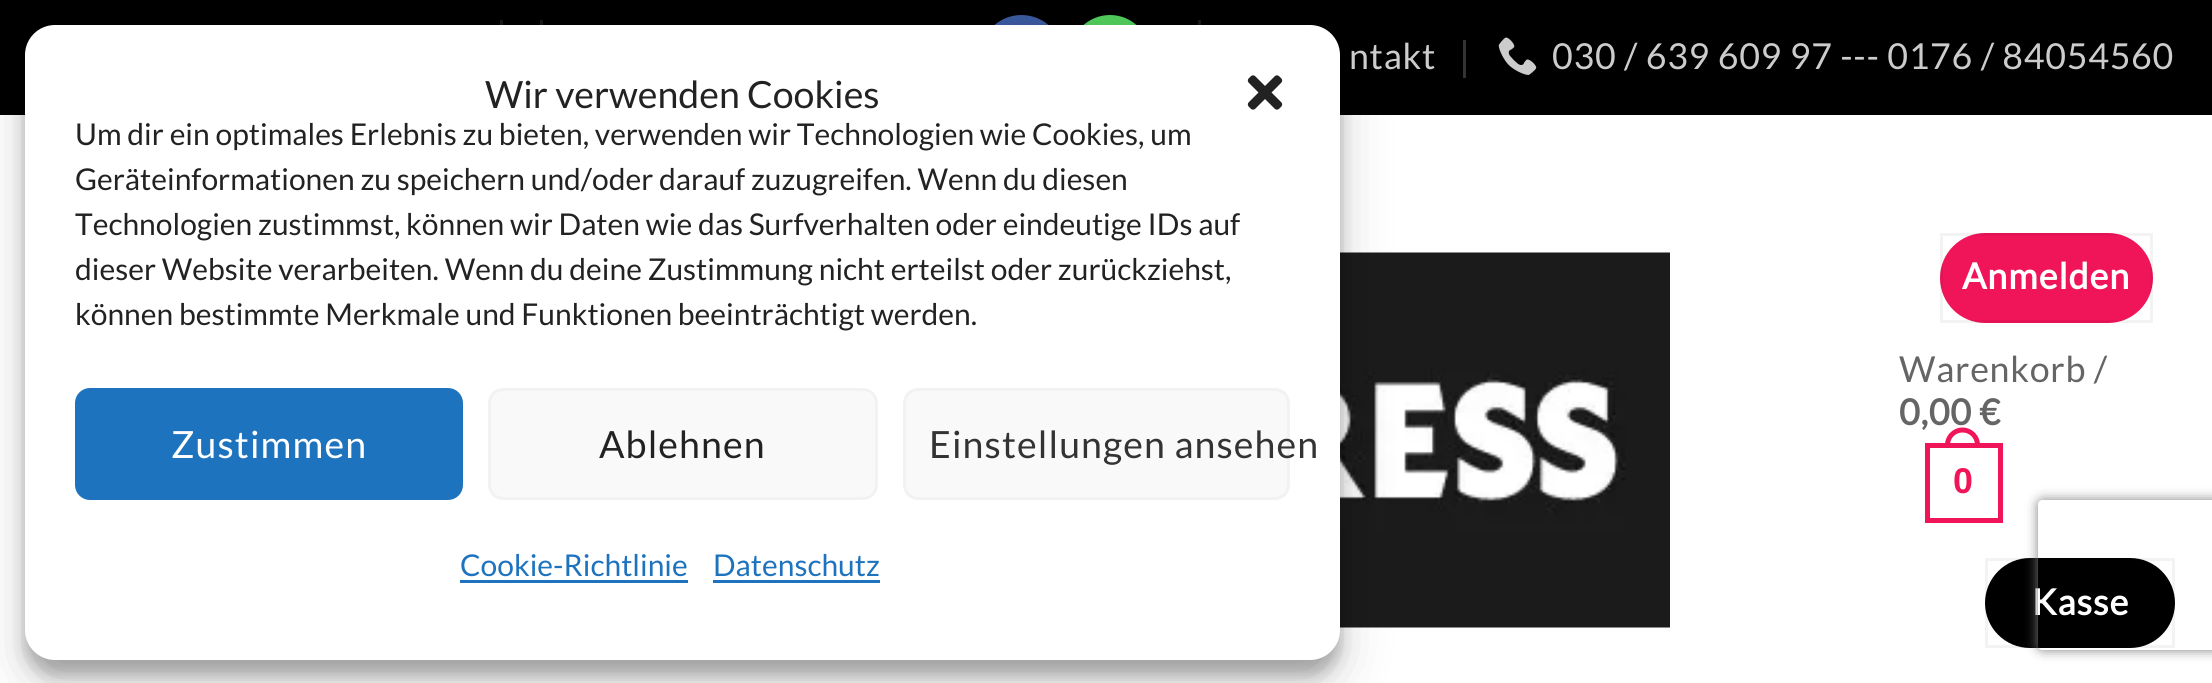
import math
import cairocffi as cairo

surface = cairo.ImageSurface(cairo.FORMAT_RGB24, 2212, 683)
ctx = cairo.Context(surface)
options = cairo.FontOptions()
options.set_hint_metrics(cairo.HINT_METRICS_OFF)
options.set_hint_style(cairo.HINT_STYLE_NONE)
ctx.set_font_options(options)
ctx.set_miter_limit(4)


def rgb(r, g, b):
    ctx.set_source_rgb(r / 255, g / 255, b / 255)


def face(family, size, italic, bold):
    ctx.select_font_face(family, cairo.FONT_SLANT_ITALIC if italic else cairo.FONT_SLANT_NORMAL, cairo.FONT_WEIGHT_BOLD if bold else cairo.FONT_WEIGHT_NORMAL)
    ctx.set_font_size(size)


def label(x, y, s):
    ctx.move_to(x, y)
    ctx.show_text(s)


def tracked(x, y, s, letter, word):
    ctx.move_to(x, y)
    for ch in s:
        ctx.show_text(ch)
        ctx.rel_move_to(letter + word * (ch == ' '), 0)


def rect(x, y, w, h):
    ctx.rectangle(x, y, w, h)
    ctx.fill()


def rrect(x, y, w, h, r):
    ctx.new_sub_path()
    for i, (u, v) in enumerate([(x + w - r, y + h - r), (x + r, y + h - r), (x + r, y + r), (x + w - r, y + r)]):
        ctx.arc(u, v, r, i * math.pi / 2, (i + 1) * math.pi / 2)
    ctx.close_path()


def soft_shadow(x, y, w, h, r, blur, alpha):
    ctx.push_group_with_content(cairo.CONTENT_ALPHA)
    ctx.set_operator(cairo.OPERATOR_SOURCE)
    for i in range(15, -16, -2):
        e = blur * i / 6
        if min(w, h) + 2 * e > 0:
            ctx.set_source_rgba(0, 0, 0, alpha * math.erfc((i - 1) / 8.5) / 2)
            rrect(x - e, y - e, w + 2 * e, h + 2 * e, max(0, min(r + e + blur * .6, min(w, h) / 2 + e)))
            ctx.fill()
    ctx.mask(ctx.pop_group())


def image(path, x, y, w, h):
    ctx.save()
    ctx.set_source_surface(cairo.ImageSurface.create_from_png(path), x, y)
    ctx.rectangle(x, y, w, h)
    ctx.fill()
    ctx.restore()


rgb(255, 255, 255)
ctx.paint()
rgb(0, 0, 0)
rect(0, 0, 2212, 115)
rgb(26, 26, 26)
rect(500, 20, 3, 5)
rect(540, 20, 3, 5)
rgb(58, 88, 157)
rrect(981.5, 16.5, 80, 82, 40)
ctx.fill_preserve()
ctx.set_line_width(3)
ctx.stroke()
rgb(81, 203, 90)
rrect(1071.5, 16.5, 77, 82, 38.5)
ctx.fill_preserve()
ctx.stroke()
rgb(26, 26, 26)
rect(1198, 20, 3, 5)
image('image2.png', 1340, 252, 330, 376)
rgb(0, 0, 0)
soft_shadow(25, 40, 1315, 635, 30, 7.5, 0.23)
soft_shadow(25, 50, 1315, 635, 30, 25, 0.19)
rgb(255, 255, 255)
rrect(25, 25, 1315, 635, 30)
ctx.fill()
face('Lato', 37.5, 0, 0)
rgb(34, 34, 34)
label(485, 108, 'Wir verwenden Cookies')
image('image0.png', 1247, 75, 36, 35)
face('Lato', 30, 0, 0)
label(75, 145, 'Um dir ein optimales Erlebnis zu bieten, verwenden wir Technologien wie Cookies, um')
label(75, 190, 'Geräteinformationen zu speichern und/oder darauf zuzugreifen. Wenn du diesen')
label(75, 235, 'Technologien zustimmst, können wir Daten wie das Surfverhalten oder eindeutige IDs auf')
label(75, 280, 'dieser Website verarbeiten. Wenn du deine Zustimmung nicht erteilst oder zurückziehst,')
label(75, 325, 'können bestimmte Merkmale und Funktionen beeinträchtigt werden.')
rgb(30, 115, 190)
rrect(76.5, 389.5, 385, 109, 13.5)
ctx.fill_preserve()
ctx.stroke()
face('Lato', 37.5, 0, 0)
rgb(255, 255, 255)
tracked(171, 458, 'Zustimmen', 1.1, 0)
rgb(249, 249, 249)
rrect(489.5, 389.5, 387, 109, 13.5)
ctx.fill_preserve()
rgb(242, 242, 242)
ctx.stroke()
rgb(34, 34, 34)
tracked(599, 458, 'Ablehnen', 1.1, 0)
rgb(249, 249, 249)
rrect(904.5, 389.5, 384, 109, 13.5)
ctx.fill_preserve()
rgb(242, 242, 242)
ctx.stroke()
rgb(51, 51, 51)
tracked(929, 458, 'Einstellungen ansehen', 1.1, 0)
face('Lato', 30, 0, 0)
rgb(30, 115, 190)
label(460, 576, 'Cookie-Richtlinie')
rect(460, 580, 228, 3)
label(713, 576, 'Datenschutz')
rect(713, 580, 167, 3)
face('Lato', 35.8, 0, 0)
rgb(204, 204, 204)
tracked(1349, 69, 'ntakt', 0.7, 0)
rgb(51, 51, 51)
rect(1463, 40, 3, 38)
image('image1.png', 1498, 37, 39, 38)
rgb(204, 204, 204)
tracked(1552, 69, '030 / 639 609 97 --- 0176 / 84054560', 0.7, 0)
rgb(240, 20, 89)
rrect(1940, 233, 213, 90, 45)
ctx.fill()
ctx.rectangle(1941.5, 234.5, 210, 87)
ctx.set_source_rgba(0, 0, 0, 0.05)
ctx.stroke()
face('Lato', 35.8, 0, 1)
rgb(255, 255, 255)
tracked(1962, 289, 'Anmelden', 1, 0)
face('Lato', 35.8, 0, 0)
rgb(101, 101, 101)
tracked(1899, 382, 'Warenkorb /', 0.7, 0)
face('Lato', 35.8, 0, 1)
tracked(1899, 425, '0,00 €', 0.7, 0)
ctx.rectangle(1927.5, 445.5, 73, 75)
rgb(240, 20, 89)
ctx.set_line_width(5)
ctx.stroke()
ctx.set_fill_rule(cairo.FILL_RULE_EVEN_ODD)
ctx.new_path()
ctx.move_to(1962.5, 427.5)
ctx.curve_to(1972, 427.5, 1980, 435.5, 1980, 445)
ctx.line_to(1980, 447.5)
ctx.line_to(1945, 447.5)
ctx.line_to(1945, 445)
ctx.curve_to(1945, 435.5, 1953, 427.5, 1962.5, 427.5)
ctx.close_path()
ctx.move_to(1962.5, 432.5)
ctx.curve_to(1969.5, 432.5, 1975, 438, 1975, 445)
ctx.line_to(1975, 447.5)
ctx.line_to(1950, 447.5)
ctx.line_to(1950, 445)
ctx.curve_to(1950, 438, 1955.5, 432.5, 1962.5, 432.5)
ctx.close_path()
ctx.fill()
face('Liberation Sans', 35.8, 0, 1)
tracked(1953, 493, '0', 0.7, 0)
rgb(0, 0, 0)
rrect(1985, 558, 190, 90, 45)
ctx.fill()
ctx.rectangle(1986.5, 559.5, 187, 87)
ctx.set_source_rgba(0, 0, 0, 0.05)
ctx.set_line_width(3)
ctx.stroke()
face('Lato', 35.8, 0, 1)
rgb(255, 255, 255)
tracked(2032, 615, 'Kasse', 1, 0)
ctx.save()
ctx.new_path()
ctx.move_to(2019, 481)
ctx.line_to(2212, 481)
ctx.line_to(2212, 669)
ctx.line_to(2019, 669)
ctx.close_path()
ctx.move_to(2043, 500)
ctx.line_to(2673, 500)
ctx.curve_to(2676, 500, 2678, 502, 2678, 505)
ctx.line_to(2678, 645)
ctx.curve_to(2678, 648, 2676, 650, 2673, 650)
ctx.line_to(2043, 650)
ctx.curve_to(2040, 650, 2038, 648, 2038, 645)
ctx.line_to(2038, 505)
ctx.curve_to(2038, 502, 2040, 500, 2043, 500)
ctx.close_path()
ctx.clip()
rgb(128, 128, 128)
soft_shadow(2038, 500, 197, 150, 5, 6, 1)
ctx.restore()
surface.write_to_png('render.png')
